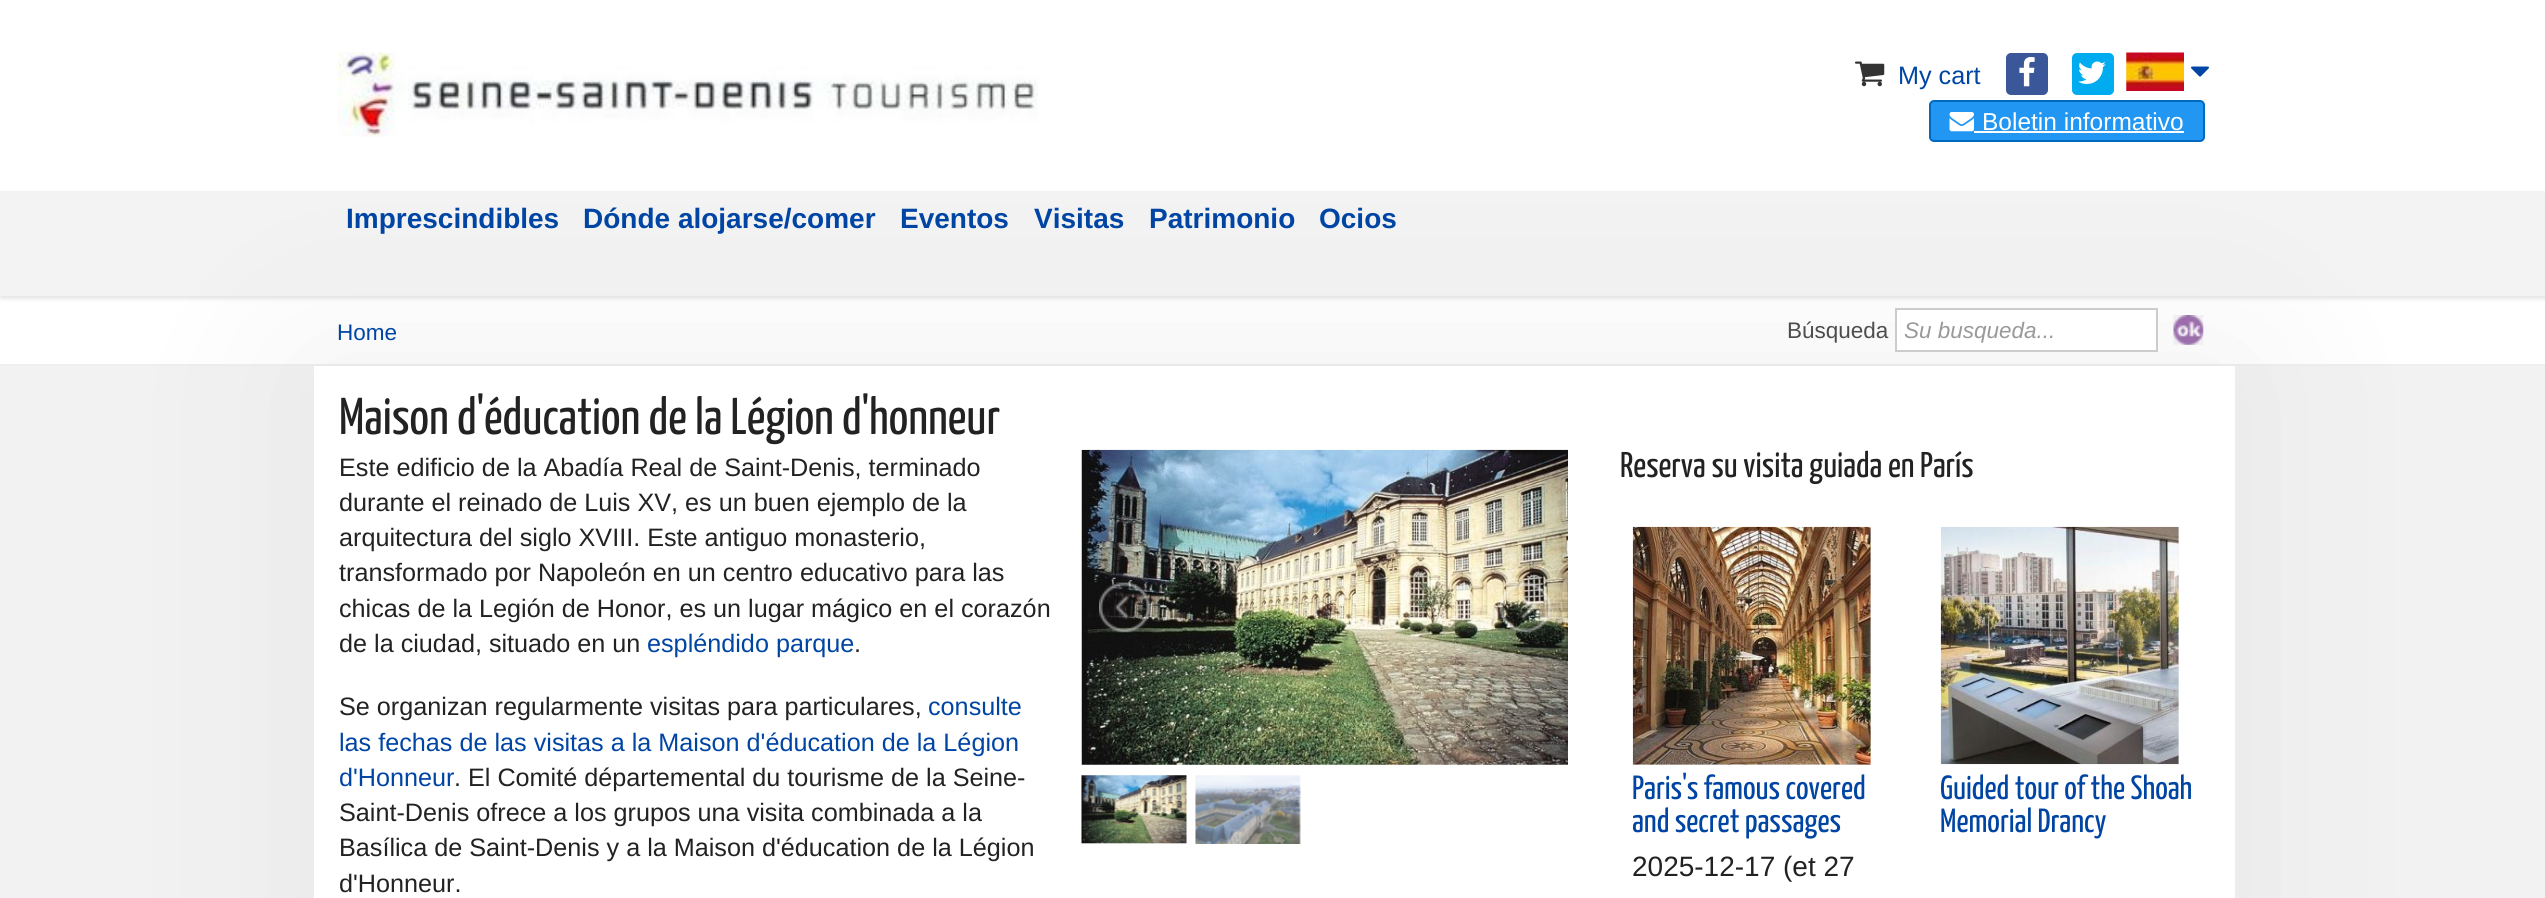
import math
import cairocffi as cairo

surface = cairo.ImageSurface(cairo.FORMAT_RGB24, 2545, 898)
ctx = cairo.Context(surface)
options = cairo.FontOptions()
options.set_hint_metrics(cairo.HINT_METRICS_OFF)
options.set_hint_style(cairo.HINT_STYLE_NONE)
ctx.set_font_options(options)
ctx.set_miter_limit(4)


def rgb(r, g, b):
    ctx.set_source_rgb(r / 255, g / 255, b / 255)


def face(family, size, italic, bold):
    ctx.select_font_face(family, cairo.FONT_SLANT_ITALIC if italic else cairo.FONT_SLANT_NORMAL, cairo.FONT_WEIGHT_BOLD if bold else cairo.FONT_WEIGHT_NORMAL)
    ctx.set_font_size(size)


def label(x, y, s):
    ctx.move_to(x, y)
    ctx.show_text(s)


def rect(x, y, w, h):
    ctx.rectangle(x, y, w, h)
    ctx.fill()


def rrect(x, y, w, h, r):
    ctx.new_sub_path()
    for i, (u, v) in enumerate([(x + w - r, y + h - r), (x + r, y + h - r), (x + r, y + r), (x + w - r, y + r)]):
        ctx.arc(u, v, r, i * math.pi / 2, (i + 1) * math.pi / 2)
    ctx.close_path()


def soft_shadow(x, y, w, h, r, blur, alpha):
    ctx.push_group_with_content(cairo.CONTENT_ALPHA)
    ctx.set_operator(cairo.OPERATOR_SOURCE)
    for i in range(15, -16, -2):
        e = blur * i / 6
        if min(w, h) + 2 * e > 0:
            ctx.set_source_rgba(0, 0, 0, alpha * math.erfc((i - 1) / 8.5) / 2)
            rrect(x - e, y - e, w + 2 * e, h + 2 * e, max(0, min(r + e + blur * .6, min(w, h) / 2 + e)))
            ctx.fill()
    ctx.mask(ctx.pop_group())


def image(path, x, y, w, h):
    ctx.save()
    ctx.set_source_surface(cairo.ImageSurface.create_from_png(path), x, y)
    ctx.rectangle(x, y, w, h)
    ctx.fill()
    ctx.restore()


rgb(255, 255, 255)
ctx.paint()
rgb(0, 0, 0)
soft_shadow(0, 194, 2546, 105, 0, 2, 0.1)
rgb(243, 243, 243)
rect(0, 191, 2545, 105)
rgb(242, 242, 242)
rect(0, 366, 2545, 532)
rgb(238, 238, 238)
rect(0, 364, 2545, 2)
rgb(200, 200, 200)
soft_shadow(312, 366, 1925, 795, 0, 87.5, 0.3)
image('image0.png', 337, 52, 701, 85)
image('image1.png', 1855, 61, 30, 26)
face('Liberation Sans', 25.2, 0, 0)
rgb(0, 69, 163)
label(1898, 84, 'My cart')
rgb(58, 87, 154)
rrect(2006, 53, 42, 42, 5)
ctx.fill()
image('image2.png', 2019, 57, 16, 30)
rgb(0, 171, 240)
rrect(2072, 53, 42, 42, 5)
ctx.fill()
image('image3.png', 2078, 61, 28, 23)
image('image4.png', 2126, 52, 58, 39)
image('image5.png', 2191, 66, 18, 11)
rgb(33, 150, 243)
rrect(1930, 101, 274, 40, 4)
ctx.fill_preserve()
rgb(0, 105, 192)
ctx.stroke()
image('image6.png', 1949, 112, 25, 20)
face('Liberation Sans', 24.5, 0, 0)
rgb(255, 255, 255)
label(1982, 130, 'Boletin informativo')
rect(1974, 131, 210, 2)
face('Liberation Sans', 28, 0, 1)
rgb(0, 69, 163)
label(346, 228, 'Imprescindibles')
label(583, 228, 'Dónde alojarse/comer')
label(900, 228, 'Eventos')
label(1034, 228, 'Visitas')
label(1149, 228, 'Patrimonio')
label(1319, 228, 'Ocios')
face('Liberation Sans', 22.5, 0, 0)
label(337, 340, 'Home')
rgb(77, 77, 77)
label(1787, 338, 'Búsqueda')
rgb(255, 255, 255)
ctx.rectangle(1896, 309, 261, 42)
ctx.fill_preserve()
rgb(204, 204, 204)
ctx.stroke()
face('Liberation Sans', 22.5, 1, 0)
rgb(153, 153, 153)
label(1904, 338, 'Su busqueda...')
image('image7.png', 2173, 315, 31, 30)
rgb(255, 255, 255)
rect(314, 366, 1921, 532)
face('Yanone Kaffeesatz ExtraLight', 51.75, 0, 0)
rgb(34, 34, 34)
label(339, 434, 'Maison d\'éducation de la Légion d\'honneur')
face('Liberation Sans', 25.2, 0, 0)
label(339, 476, 'Este edificio de la Abadía Real de Saint-Denis, terminado')
label(339, 511, 'durante el reinado de Luis XV, es un buen ejemplo de la')
label(339, 546, 'arquitectura del siglo XVIII. Este antiguo monasterio,')
label(339, 581, 'transformado por Napoleón en un centro educativo para las')
label(339, 617, 'chicas de la Legión de Honor, es un lugar mágico en el corazón')
label(339, 652, 'de la ciudad, situado en un')
rgb(0, 69, 163)
label(647, 652, 'espléndido parque')
rgb(34, 34, 34)
label(854, 652, '.')
image('image8.png', 1081, 449, 487, 316)
image('image9.png', 1099, 582, 52, 51)
image('image10.png', 1499, 582, 52, 51)
image('image11.png', 1081, 775, 106, 69)
image('image12.png', 1195, 775, 106, 69)
label(339, 715, 'Se organizan regularmente visitas para particulares,')
rgb(0, 69, 163)
label(928, 715, 'consulte')
label(339, 751, 'las fechas de las visitas a la Maison d\'éducation de la Légion')
label(339, 786, 'd\'Honneur')
rgb(34, 34, 34)
label(454, 786, '. El Comité départemental du tourisme de la Seine-')
label(339, 821, 'Saint-Denis ofrece a los grupos una visita combinada a la')
label(339, 856, 'Basílica de Saint-Denis y a la Maison d\'éducation de la Légion')
label(339, 892, 'd\'Honneur.')
face('Yanone Kaffeesatz ExtraLight', 35.75, 0, 0)
label(1620, 477, 'Reserva su visita guiada en París')
rgb(238, 238, 238)
rect(1633, 527, 238, 238)
image('image13.png', 1632, 526, 239, 239)
face('Yanone Kaffeesatz ExtraLight', 33.5, 0, 0)
rgb(0, 69, 163)
label(1632, 799, 'Paris\'s famous covered')
label(1632, 832, 'and secret passages')
face('Liberation Sans', 28, 0, 0)
rgb(34, 34, 34)
label(1632, 876, '2025-12-17 (et 27')
rgb(238, 238, 238)
rect(1941, 527, 238, 238)
image('image14.png', 1940, 526, 239, 239)
face('Yanone Kaffeesatz ExtraLight', 33.5, 0, 0)
rgb(0, 69, 163)
label(1940, 799, 'Guided tour of the Shoah')
label(1940, 832, 'Memorial Drancy')
surface.write_to_png('render.png')
